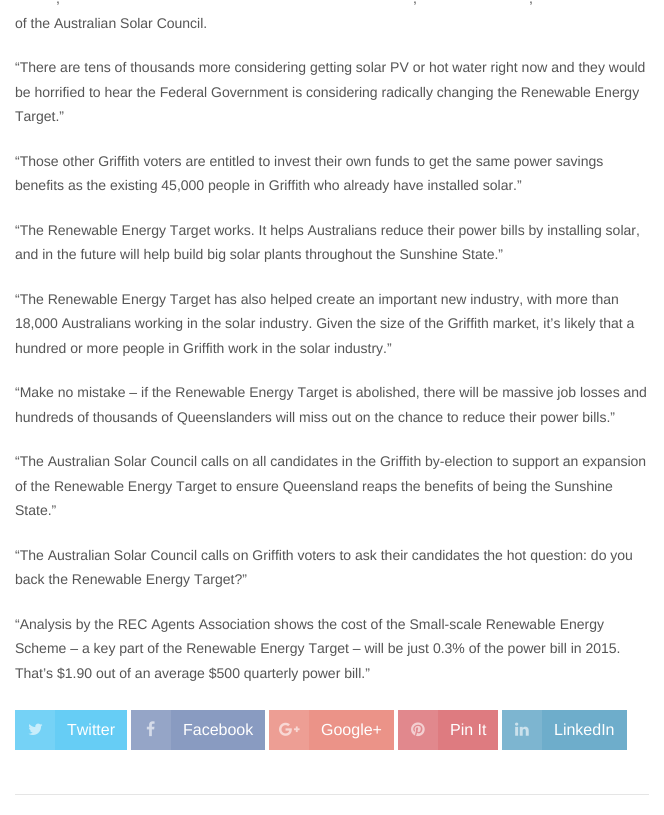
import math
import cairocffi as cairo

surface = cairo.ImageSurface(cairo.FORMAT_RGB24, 664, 815)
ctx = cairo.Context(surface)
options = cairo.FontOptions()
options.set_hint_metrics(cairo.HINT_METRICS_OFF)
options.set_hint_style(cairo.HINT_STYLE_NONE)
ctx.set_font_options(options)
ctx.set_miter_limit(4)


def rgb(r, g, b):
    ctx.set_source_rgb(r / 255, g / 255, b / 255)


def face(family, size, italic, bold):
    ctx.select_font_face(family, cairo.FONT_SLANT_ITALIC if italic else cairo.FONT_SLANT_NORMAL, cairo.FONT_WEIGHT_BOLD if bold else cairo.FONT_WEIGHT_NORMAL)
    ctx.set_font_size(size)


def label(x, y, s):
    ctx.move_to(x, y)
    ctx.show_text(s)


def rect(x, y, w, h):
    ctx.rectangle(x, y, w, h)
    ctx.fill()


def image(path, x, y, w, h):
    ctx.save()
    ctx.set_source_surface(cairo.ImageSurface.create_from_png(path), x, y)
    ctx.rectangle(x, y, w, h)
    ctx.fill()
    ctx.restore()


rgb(255, 255, 255)
ctx.paint()
face('Arimo', 14, 0, 0)
rgb(85, 85, 85)
label(56, 3, ',')
label(413, 3, ',')
label(529, 3, ',')
label(15, 28, 'of the Australian Solar Council.')
label(15, 72, '“There are tens of thousands more considering getting solar PV or hot water right now and they would')
label(15, 97, 'be horrified to hear the Federal Government is considering radically changing the Renewable Energy')
label(15, 121, 'Target.”')
label(15, 166, '“Those other Griffith voters are entitled to invest their own funds to get the same power savings')
label(15, 190, 'benefits as the existing 45,000 people in Griffith who already have installed solar.”')
label(15, 235, '“The Renewable Energy Target works. It helps Australians reduce their power bills by installing solar,')
label(15, 259, 'and in the future will help build big solar plants throughout the Sunshine State.”')
label(15, 304, '“The Renewable Energy Target has also helped create an important new industry, with more than')
label(15, 328, '18,000 Australians working in the solar industry. Given the size of the Griffith market, it’s likely that a')
label(15, 353, 'hundred or more people in Griffith work in the solar industry.”')
label(15, 397, '“Make no mistake – if the Renewable Energy Target is abolished, there will be massive job losses and')
label(15, 422, 'hundreds of thousands of Queenslanders will miss out on the chance to reduce their power bills.”')
label(15, 466, '“The Australian Solar Council calls on all candidates in the Griffith by-election to support an expansion')
label(15, 491, 'of the Renewable Energy Target to ensure Queensland reaps the benefits of being the Sunshine')
label(15, 515, 'State.”')
label(15, 560, '“The Australian Solar Council calls on Griffith voters to ask their candidates the hot question: do you')
label(15, 584, 'back the Renewable Energy Target?”')
label(15, 629, '“Analysis by the REC Agents Association shows the cost of the Small-scale Renewable Energy')
label(15, 653, 'Scheme – a key part of the Renewable Energy Target – will be just 0.3% of the power bill in 2015.')
label(15, 678, 'That’s $1.90 out of an average $500 quarterly power bill.”')
rgb(102, 205, 245)
rect(55, 710, 72, 40)
rgb(117, 210, 246)
rect(15, 710, 40, 40)
image('image0.png', 28, 723, 15, 12)
face('Arimo', 16, 0, 0)
rgb(255, 255, 255)
label(67, 735, 'Twitter')
rgb(137, 155, 193)
rect(171, 710, 94, 40)
rgb(149, 165, 199)
rect(131, 710, 40, 40)
image('image1.png', 146, 721, 9, 16)
rgb(255, 255, 255)
label(183, 735, 'Facebook')
rgb(235, 147, 136)
rect(309, 710, 85, 40)
rgb(237, 158, 148)
rect(269, 710, 40, 40)
image('image2.png', 279, 722, 21, 14)
rgb(255, 255, 255)
label(321, 735, 'Google+')
rgb(222, 123, 128)
rect(438, 710, 60, 40)
rgb(225, 136, 141)
rect(398, 710, 40, 40)
image('image3.png', 411, 722, 14, 15)
rgb(255, 255, 255)
label(450, 735, 'Pin It')
rgb(110, 173, 203)
rect(542, 710, 85, 40)
rgb(125, 181, 208)
rect(502, 710, 40, 40)
image('image4.png', 515, 722, 14, 14)
rgb(255, 255, 255)
label(554, 735, 'LinkedIn')
rgb(229, 229, 229)
rect(15, 794, 634, 1)
surface.write_to_png('render.png')
